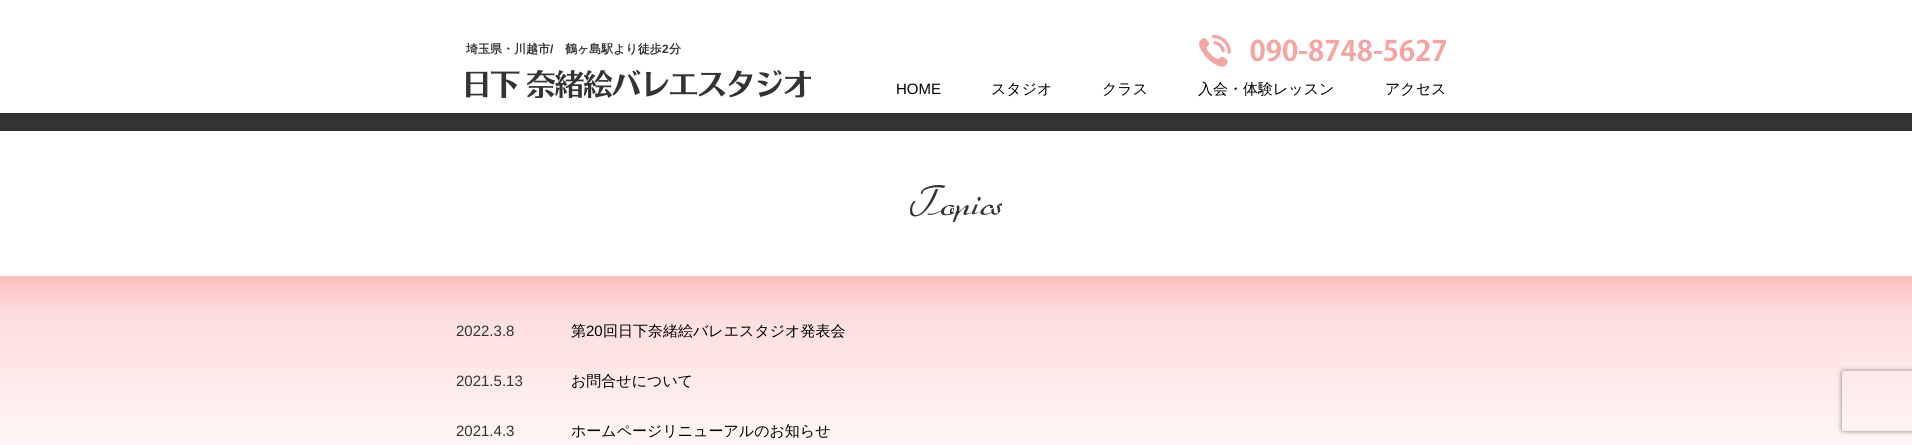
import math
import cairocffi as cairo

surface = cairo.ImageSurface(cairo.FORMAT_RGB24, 1912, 445)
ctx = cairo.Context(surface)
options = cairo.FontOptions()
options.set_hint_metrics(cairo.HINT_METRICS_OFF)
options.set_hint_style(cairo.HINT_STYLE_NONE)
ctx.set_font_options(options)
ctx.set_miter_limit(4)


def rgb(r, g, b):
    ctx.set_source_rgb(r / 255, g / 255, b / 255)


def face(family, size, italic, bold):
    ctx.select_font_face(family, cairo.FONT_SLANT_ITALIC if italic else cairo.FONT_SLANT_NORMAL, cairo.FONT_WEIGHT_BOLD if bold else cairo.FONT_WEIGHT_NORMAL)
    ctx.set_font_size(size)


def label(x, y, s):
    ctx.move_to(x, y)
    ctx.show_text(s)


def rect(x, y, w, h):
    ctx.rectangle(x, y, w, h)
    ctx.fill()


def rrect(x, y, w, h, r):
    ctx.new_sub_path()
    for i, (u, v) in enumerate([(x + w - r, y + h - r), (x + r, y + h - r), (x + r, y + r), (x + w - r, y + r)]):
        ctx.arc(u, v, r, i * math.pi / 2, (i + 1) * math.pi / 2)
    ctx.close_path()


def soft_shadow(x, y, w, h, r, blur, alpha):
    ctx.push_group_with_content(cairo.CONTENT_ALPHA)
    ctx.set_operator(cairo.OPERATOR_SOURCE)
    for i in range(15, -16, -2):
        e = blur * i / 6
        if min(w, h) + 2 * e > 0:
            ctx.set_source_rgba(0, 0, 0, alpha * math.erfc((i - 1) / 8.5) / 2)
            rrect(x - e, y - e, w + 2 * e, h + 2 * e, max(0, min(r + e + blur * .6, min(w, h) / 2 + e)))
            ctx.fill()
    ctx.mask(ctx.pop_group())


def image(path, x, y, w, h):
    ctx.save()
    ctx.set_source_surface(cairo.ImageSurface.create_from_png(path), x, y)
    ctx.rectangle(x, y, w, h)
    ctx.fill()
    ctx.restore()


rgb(255, 255, 255)
ctx.paint()
rgb(51, 51, 51)
rect(0, 113, 1912, 18)
face('WenQuanYi Zen Hei', 12, 0, 1)
label(466, 53, '埼玉県・川越市')
face('Liberation Sans', 12, 0, 1)
label(550, 53, '/')
face('WenQuanYi Zen Hei', 12, 0, 1)
label(565, 53, '鶴ヶ島駅より徒歩')
face('Liberation Sans', 12, 0, 1)
label(662, 53, '2')
face('WenQuanYi Zen Hei', 12, 0, 1)
label(669, 53, '分')
image('image0.png', 466, 70, 345, 28)
image('image1.png', 1199, 35, 247, 32)
face('Liberation Sans', 15, 0, 0)
rgb(0, 0, 0)
label(896, 94, 'HOME')
face('WenQuanYi Zen Hei Medium', 15, 0, 0)
label(991, 94, 'スタジオ')
label(1102, 94, 'クラス')
label(1198, 94, '入会・体験レッスン')
label(1385, 94, 'アクセス')
image('image2.png', 910, 185, 92, 37)
gradient = cairo.LinearGradient(956, 276, 956, 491)
gradient.add_color_stop_rgba(0, 0.988, 0.741, 0.741, 1)
gradient.add_color_stop_rgba(0.17, 0.992, 0.867, 0.867, 1)
gradient.add_color_stop_rgba(1, 1, 1, 1, 1)
ctx.set_source(gradient)
rect(0, 276, 1912, 169)
face('Liberation Sans', 15, 0, 0)
rgb(51, 51, 51)
label(456, 336, '2022.3.8')
face('WenQuanYi Zen Hei Medium', 15, 0, 0)
rgb(0, 0, 0)
label(571, 336, '第')
face('Liberation Sans', 15, 0, 0)
label(586, 336, '20')
face('WenQuanYi Zen Hei Medium', 15, 0, 0)
label(603, 336, '回日下奈緒絵バレエスタジオ発表会')
face('Liberation Sans', 15, 0, 0)
rgb(51, 51, 51)
label(456, 386, '2021.5.13')
face('WenQuanYi Zen Hei Medium', 15, 0, 0)
rgb(0, 0, 0)
label(571, 386, 'お問合せについて')
face('Liberation Sans', 15, 0, 0)
rgb(51, 51, 51)
label(456, 436, '2021.4.3')
face('WenQuanYi Zen Hei Medium', 15, 0, 0)
rgb(0, 0, 0)
label(571, 436, 'ホームページリニューアルのお知らせ')
ctx.save()
ctx.set_fill_rule(cairo.FILL_RULE_EVEN_ODD)
ctx.new_path()
ctx.move_to(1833, 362)
ctx.line_to(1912, 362)
ctx.line_to(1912, 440)
ctx.line_to(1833, 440)
ctx.close_path()
ctx.move_to(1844, 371)
ctx.line_to(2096, 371)
ctx.curve_to(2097, 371, 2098, 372, 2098, 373)
ctx.line_to(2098, 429)
ctx.curve_to(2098, 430, 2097, 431, 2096, 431)
ctx.line_to(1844, 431)
ctx.curve_to(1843, 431, 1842, 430, 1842, 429)
ctx.line_to(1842, 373)
ctx.curve_to(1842, 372, 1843, 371, 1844, 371)
ctx.close_path()
ctx.clip()
rgb(128, 128, 128)
soft_shadow(1842, 371, 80, 60, 2, 2.5, 1)
ctx.restore()
surface.write_to_png('render.png')
